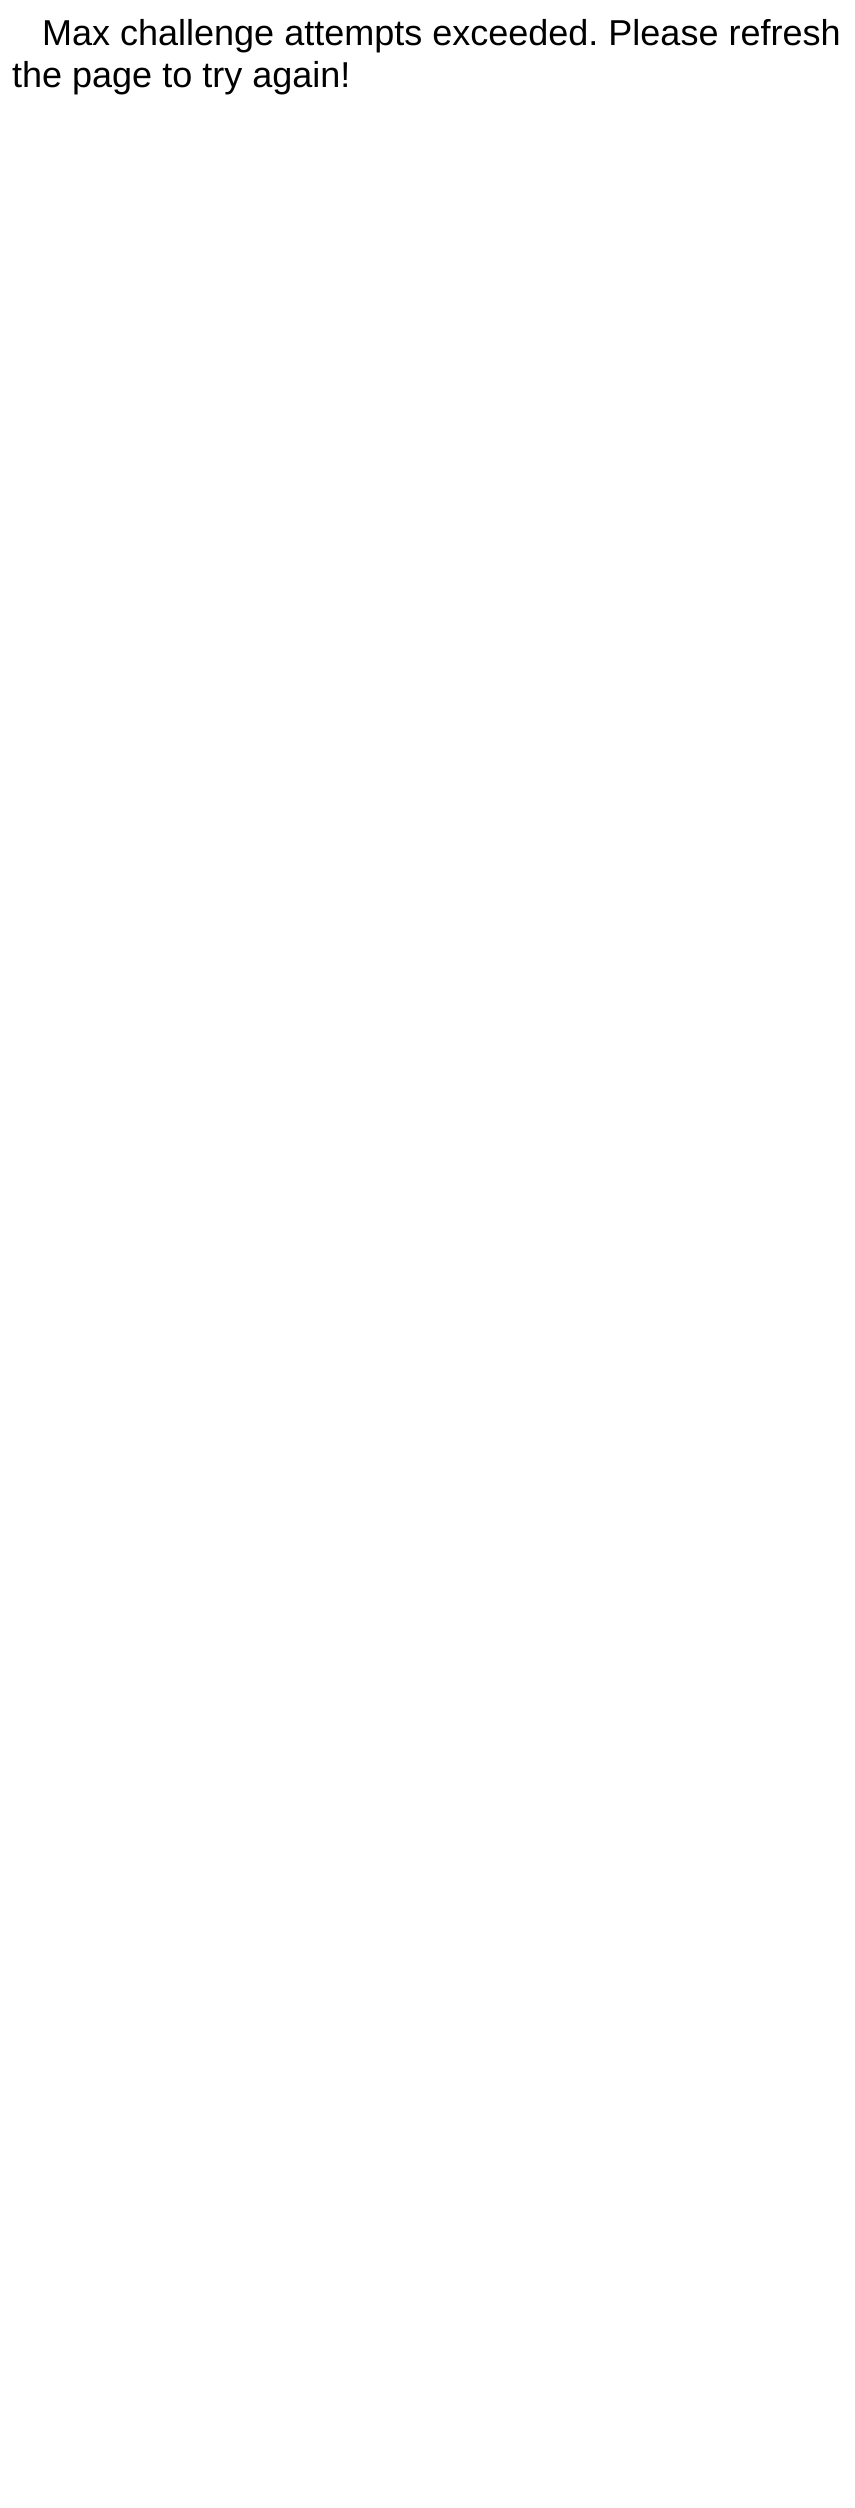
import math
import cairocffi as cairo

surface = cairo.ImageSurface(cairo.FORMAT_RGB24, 855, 2508)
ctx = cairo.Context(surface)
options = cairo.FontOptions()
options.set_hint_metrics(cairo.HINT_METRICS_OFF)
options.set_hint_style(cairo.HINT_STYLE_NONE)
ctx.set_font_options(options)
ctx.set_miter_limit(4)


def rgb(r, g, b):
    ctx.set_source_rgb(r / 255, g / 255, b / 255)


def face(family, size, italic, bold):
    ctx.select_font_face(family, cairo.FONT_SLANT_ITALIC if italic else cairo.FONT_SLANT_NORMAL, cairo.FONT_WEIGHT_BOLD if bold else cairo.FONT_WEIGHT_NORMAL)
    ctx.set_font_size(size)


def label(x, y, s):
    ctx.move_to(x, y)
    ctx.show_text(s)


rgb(255, 255, 255)
ctx.paint()
face('Liberation Sans', 36, 0, 0)
rgb(0, 0, 0)
label(42, 45, 'Max challenge attempts exceeded. Please refresh')
label(12, 87, 'the page to try again!')
surface.write_to_png('render.png')
